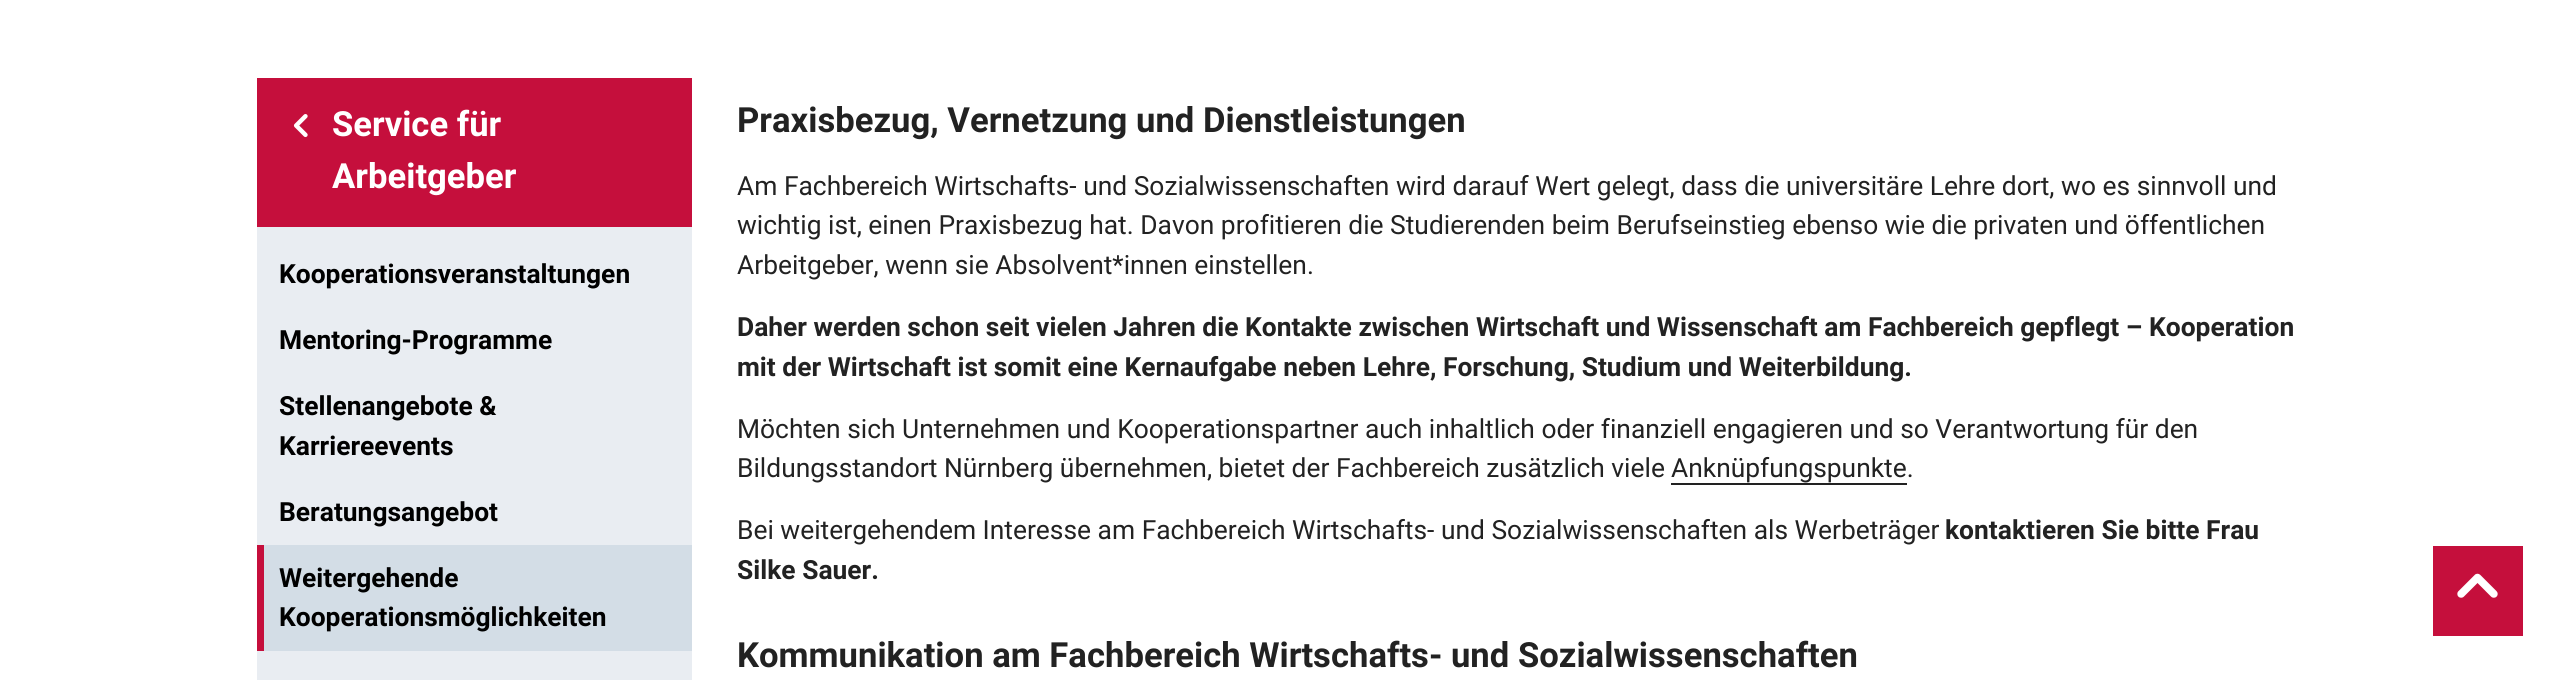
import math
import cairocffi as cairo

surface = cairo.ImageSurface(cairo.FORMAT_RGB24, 2568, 680)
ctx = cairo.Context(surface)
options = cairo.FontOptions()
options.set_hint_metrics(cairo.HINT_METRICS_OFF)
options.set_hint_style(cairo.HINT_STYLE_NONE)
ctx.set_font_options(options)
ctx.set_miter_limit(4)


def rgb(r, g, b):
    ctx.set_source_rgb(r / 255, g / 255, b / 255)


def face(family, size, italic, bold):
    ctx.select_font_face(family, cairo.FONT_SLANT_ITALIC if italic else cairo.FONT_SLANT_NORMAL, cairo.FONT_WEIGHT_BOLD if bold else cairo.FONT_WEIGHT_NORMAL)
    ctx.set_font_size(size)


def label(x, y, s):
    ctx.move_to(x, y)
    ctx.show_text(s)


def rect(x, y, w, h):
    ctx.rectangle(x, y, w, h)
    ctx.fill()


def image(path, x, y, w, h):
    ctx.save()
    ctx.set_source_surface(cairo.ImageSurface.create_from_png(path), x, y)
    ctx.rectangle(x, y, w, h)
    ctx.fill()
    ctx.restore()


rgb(255, 255, 255)
ctx.paint()
rgb(197, 15, 60)
rect(257, 78, 435, 149)
image('image0.png', 293, 114, 15, 24)
face('Roboto', 34.65, 0, 1)
rgb(255, 255, 255)
label(332, 136, 'Service für')
label(332, 188, 'Arbeitgeber')
rgb(233, 237, 242)
rect(257, 227, 435, 453)
face('Roboto', 26.4, 0, 1)
rgb(0, 0, 0)
label(279, 283, 'Kooperationsveranstaltungen')
label(279, 349, 'Mentoring-Programme')
label(279, 415, 'Stellenangebote &')
label(279, 455, 'Karriereevents')
label(279, 521, 'Beratungsangebot')
rgb(211, 221, 230)
rect(264, 545, 428, 106)
rgb(197, 15, 60)
rect(257, 545, 7, 106)
face('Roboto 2', 26.4, 0, 1)
rgb(0, 0, 0)
label(279, 587, 'Weitergehende')
label(279, 626, 'Kooperationsmöglichkeiten')
face('Roboto 2', 34.65, 0, 1)
rgb(34, 34, 34)
label(737, 132, 'Praxisbezug, Vernetzung und Dienstleistungen')
face('Roboto', 26.4, 0, 0)
label(737, 195, 'Am Fachbereich Wirtschafts- und Sozialwissenschaften wird darauf Wert gelegt, dass die universitäre Lehre dort, wo es sinnvoll und')
label(737, 234, 'wichtig ist, einen Praxisbezug hat. Davon profitieren die Studierenden beim Berufseinstieg ebenso wie die privaten und öffentlichen')
label(737, 274, 'Arbeitgeber, wenn sie Absolvent*innen einstellen.')
face('Roboto 2', 26.4, 0, 1)
label(737, 336, 'Daher werden schon seit vielen Jahren die Kontakte zwischen Wirtschaft und Wissenschaft am Fachbereich gepflegt – Kooperation')
label(737, 376, 'mit der Wirtschaft ist somit eine Kernaufgabe neben Lehre, Forschung, Studium und Weiterbildung.')
face('Roboto', 26.4, 0, 0)
label(737, 438, 'Möchten sich Unternehmen und Kooperationspartner auch inhaltlich oder finanziell engagieren und so Verantwortung für den')
label(737, 477, 'Bildungsstandort Nürnberg übernehmen, bietet der Fachbereich zusätzlich viele')
label(1671, 477, 'Anknüpfungspunkte.')
rect(1671, 483, 236, 2)
label(737, 539, 'Bei weitergehendem Interesse am Fachbereich Wirtschafts- und Sozialwissenschaften als Werbeträger')
face('Roboto 2', 26.4, 0, 1)
label(1945, 539, 'kontaktieren Sie bitte Frau')
label(737, 579, 'Silke Sauer.')
face('Roboto 2', 34.65, 0, 1)
label(737, 667, 'Kommunikation am Fachbereich Wirtschafts- und Sozialwissenschaften')
rgb(197, 15, 60)
rect(2433, 546, 90, 90)
image('image1.png', 2457, 573, 41, 25)
surface.write_to_png('render.png')
